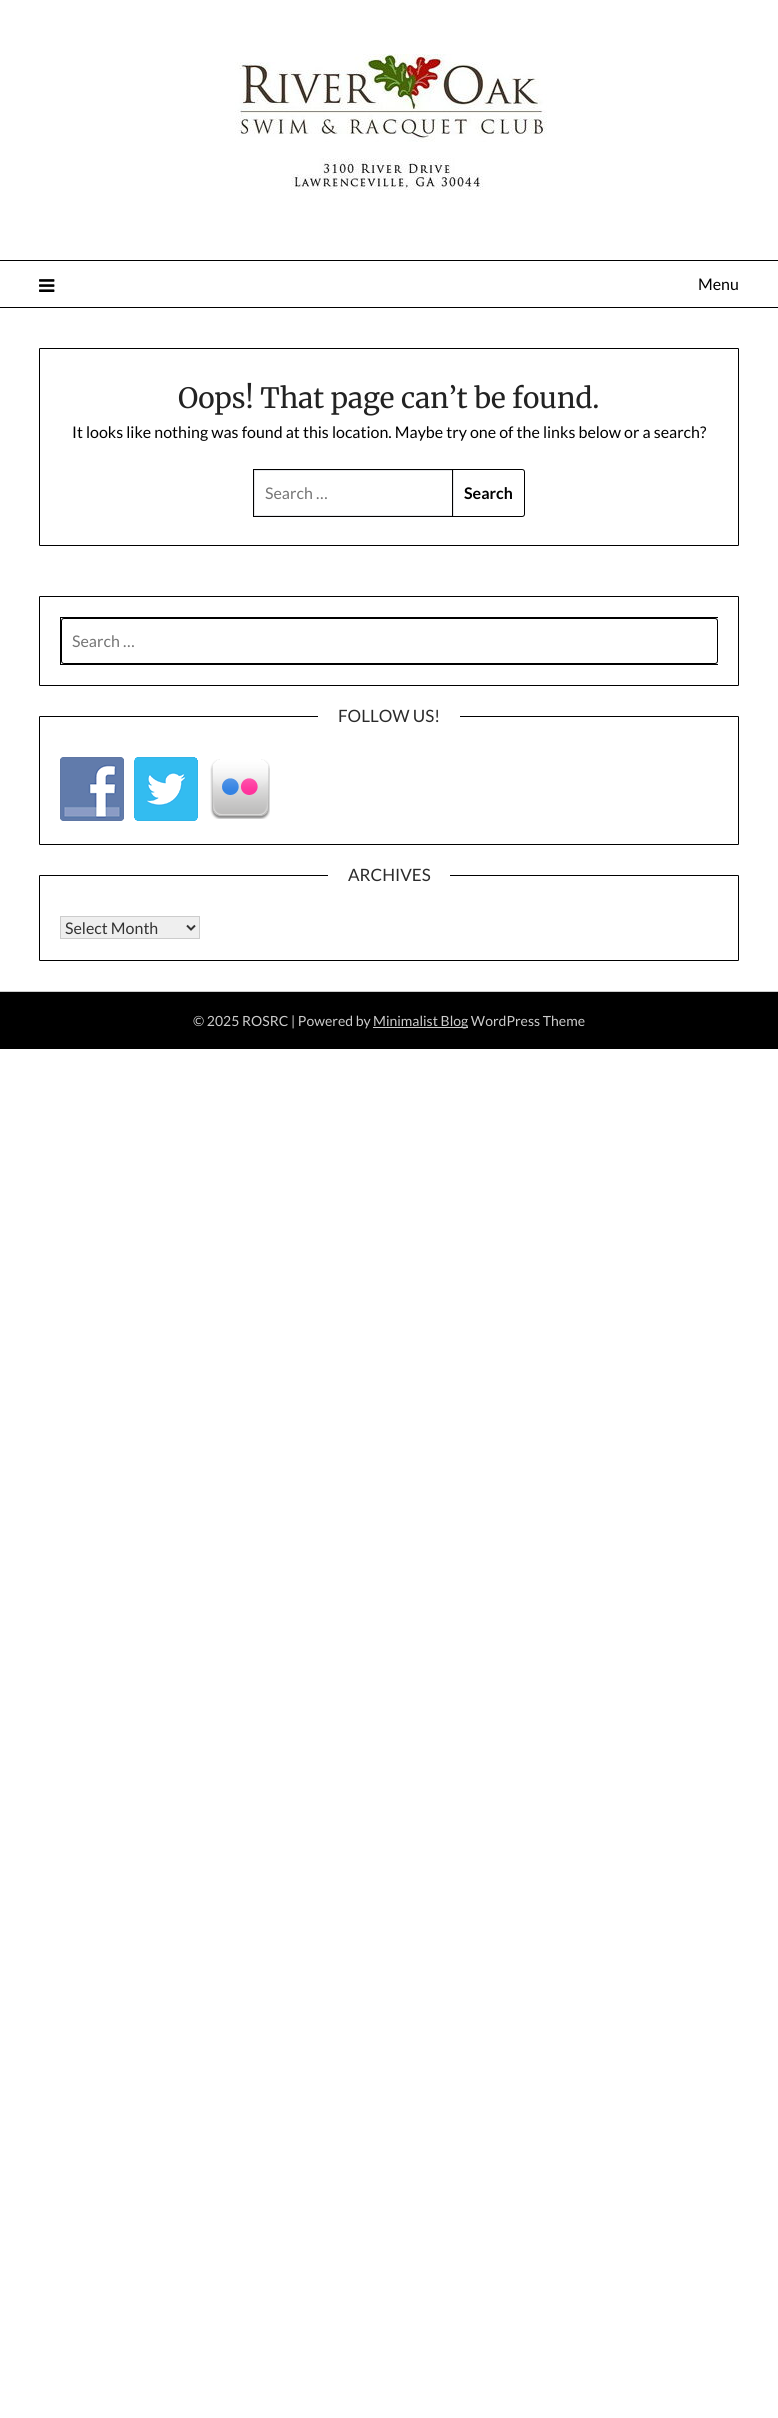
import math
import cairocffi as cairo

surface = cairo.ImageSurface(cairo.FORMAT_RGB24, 778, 2418)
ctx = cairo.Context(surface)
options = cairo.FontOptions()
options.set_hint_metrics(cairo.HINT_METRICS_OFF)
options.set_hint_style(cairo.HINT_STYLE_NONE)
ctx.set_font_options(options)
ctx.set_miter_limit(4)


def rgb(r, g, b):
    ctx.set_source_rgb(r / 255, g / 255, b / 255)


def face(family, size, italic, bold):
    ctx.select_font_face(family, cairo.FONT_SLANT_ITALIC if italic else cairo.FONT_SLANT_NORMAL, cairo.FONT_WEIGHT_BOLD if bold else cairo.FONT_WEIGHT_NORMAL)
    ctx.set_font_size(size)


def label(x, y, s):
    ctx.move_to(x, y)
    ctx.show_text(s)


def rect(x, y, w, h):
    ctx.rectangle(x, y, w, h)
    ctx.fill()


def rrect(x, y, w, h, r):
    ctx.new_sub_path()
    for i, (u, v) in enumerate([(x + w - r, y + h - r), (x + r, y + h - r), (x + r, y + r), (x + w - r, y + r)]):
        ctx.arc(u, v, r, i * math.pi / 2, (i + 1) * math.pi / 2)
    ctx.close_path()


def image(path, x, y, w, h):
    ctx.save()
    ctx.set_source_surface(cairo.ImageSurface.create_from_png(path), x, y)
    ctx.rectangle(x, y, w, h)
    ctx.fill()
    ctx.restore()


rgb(255, 255, 255)
ctx.paint()
image('image0.png', 235, 54, 312, 136)
rgb(0, 0, 0)
rect(0, 260, 778, 1)
rect(0, 307, 778, 1)
image('image1.png', 39, 279, 16, 13)
face('Lato', 16, 0, 0)
label(698, 290, 'Menu')
rrect(39.5, 348.5, 699, 197, 0.5)
ctx.set_line_width(1)
ctx.stroke()
face('Merriweather', 28, 0, 0)
rgb(34, 34, 34)
label(178, 408, 'Oops! That page can’t be found.')
face('Lato', 16, 0, 0)
rgb(0, 0, 0)
label(72, 438, 'It looks like nothing was found at this location. Maybe try one of the links below or a search?')
rect(253, 469, 201, 1)
rect(253, 516, 201, 1)
rect(253, 469, 1, 48)
ctx.rectangle(254.5, 470.5, 199, 45)
rgb(229, 230, 233)
ctx.stroke()
rgb(117, 117, 117)
label(265, 499, 'Search …')
ctx.new_path()
ctx.move_to(452.5, 469.5)
ctx.line_to(522, 469.5)
ctx.curve_to(523.5, 469.5, 524.5, 470.5, 524.5, 472)
ctx.line_to(524.5, 514)
ctx.curve_to(524.5, 515.5, 523.5, 516.5, 522, 516.5)
ctx.line_to(452.5, 516.5)
ctx.close_path()
rgb(0, 0, 0)
ctx.stroke()
face('Lato', 16, 0, 1)
label(464, 499, 'Search')
rrect(39.5, 596.5, 699, 89, 0.5)
ctx.stroke()
rect(60, 617, 658, 1)
rect(60, 664, 658, 1)
rect(60, 617, 1, 48)
rrect(61.5, 618.5, 656, 45, 2.5)
ctx.stroke()
face('Lato', 16, 0, 0)
rgb(117, 117, 117)
label(72, 647, 'Search …')
rrect(39.5, 716.5, 699, 128, 0.5)
rgb(0, 0, 0)
ctx.stroke()
rgb(255, 255, 255)
rect(318, 716, 142, 1)
face('Lato', 17, 0, 0)
rgb(43, 43, 43)
label(338, 722, 'FOLLOW US!')
image('image2.png', 60, 757, 64, 64)
image('image3.png', 134, 757, 64, 64)
image('image4.png', 210, 759, 60, 60)
rrect(39.5, 875.5, 699, 85, 0.5)
rgb(0, 0, 0)
ctx.stroke()
rgb(255, 255, 255)
rect(328, 875, 122, 1)
rgb(43, 43, 43)
label(348, 881, 'ARCHIVES')
rgb(239, 239, 239)
ctx.rectangle(60.5, 916.5, 139, 22)
ctx.fill_preserve()
rgb(204, 204, 204)
ctx.stroke()
ctx.new_path()
ctx.move_to(187, 925.5)
ctx.line_to(191, 929.5)
ctx.line_to(195, 925.5)
rgb(51, 51, 51)
ctx.set_line_width(2)
ctx.stroke()
face('Lato', 16, 0, 0)
label(65, 934, 'Select Month')
rgb(0, 0, 0)
rect(0, 992, 778, 57)
rgb(204, 204, 204)
rect(0, 991, 778, 1)
face('Lato', 14, 0, 0)
label(193, 1026, '© 2025 ROSRC | Powered by')
rect(373, 1027, 95, 1)
label(373, 1026, 'Minimalist Blog WordPress Theme')
surface.write_to_png('render.png')
